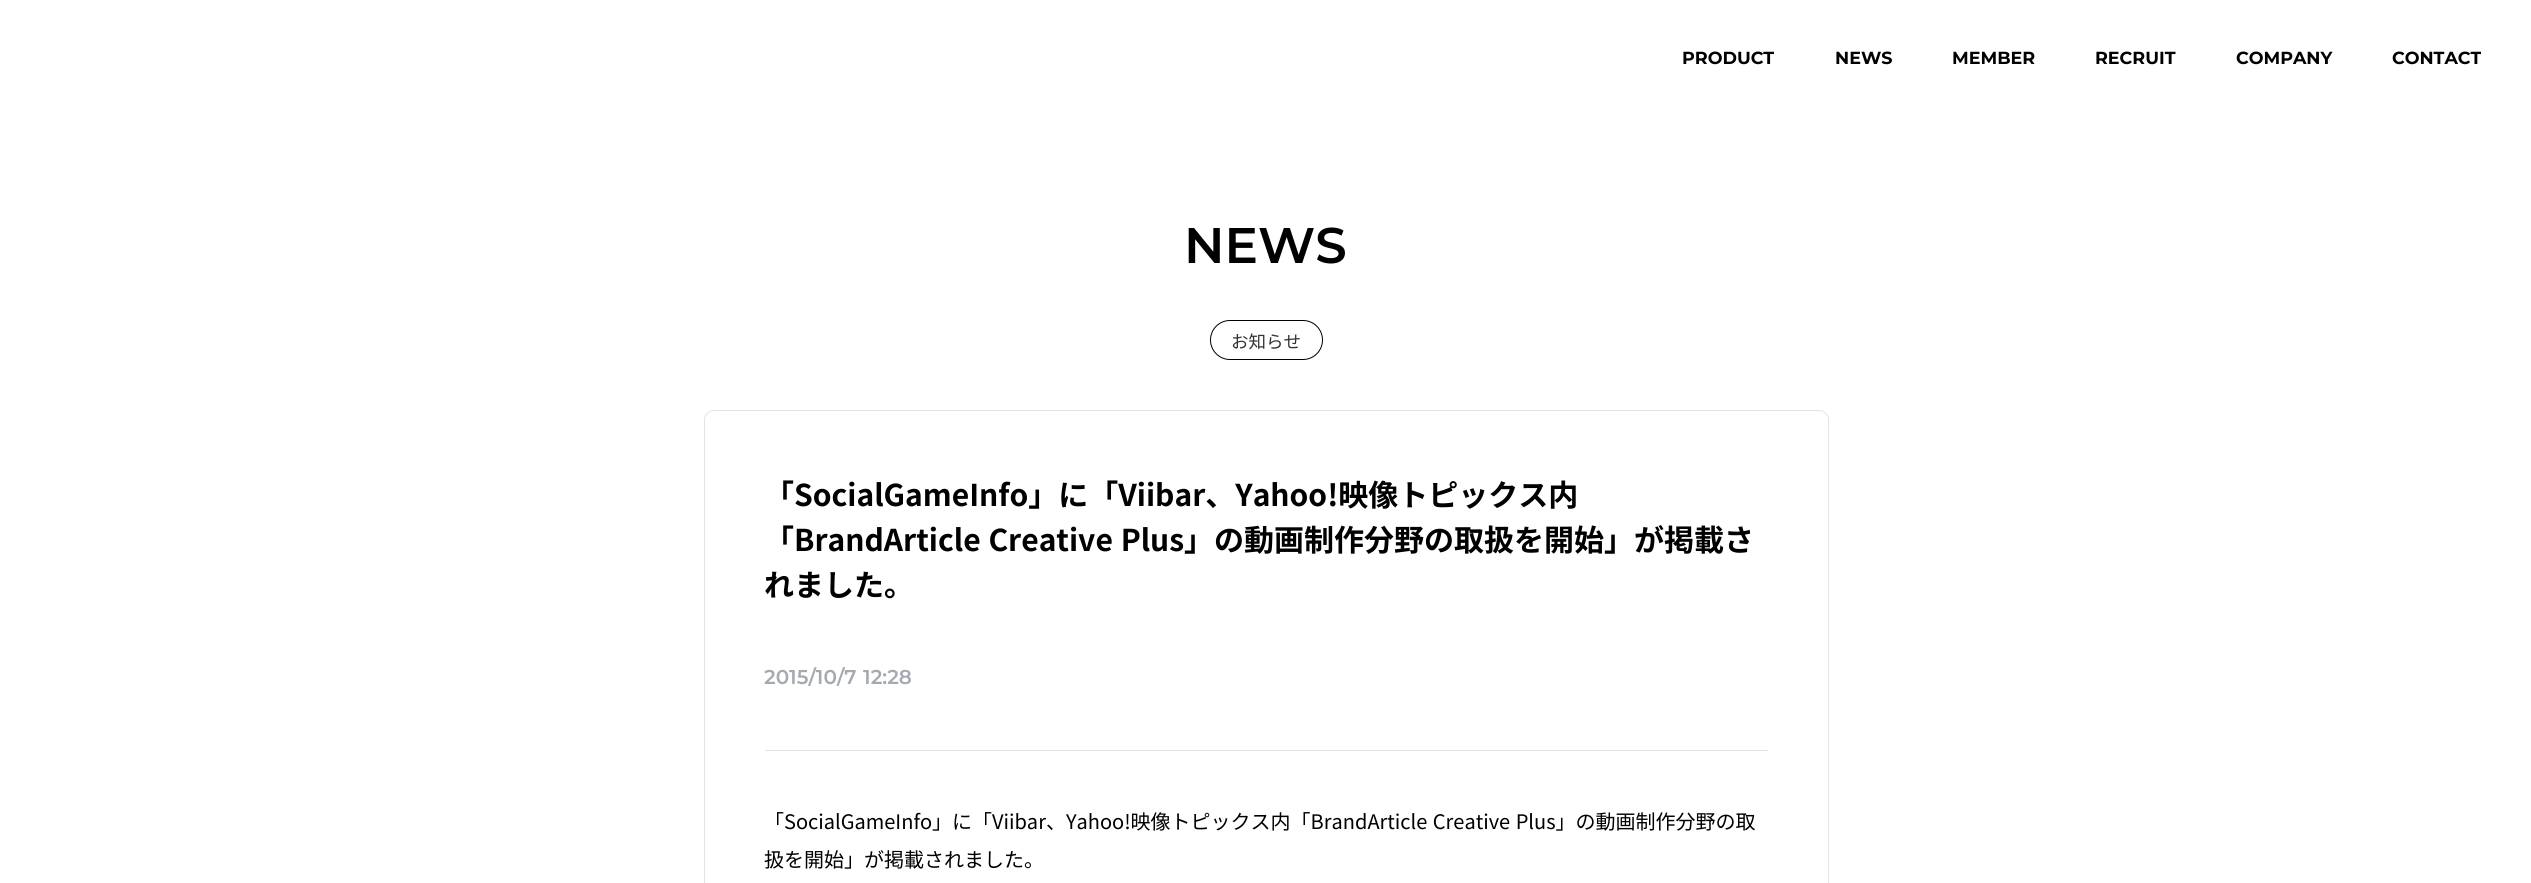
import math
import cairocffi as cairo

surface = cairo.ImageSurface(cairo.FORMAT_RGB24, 2531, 883)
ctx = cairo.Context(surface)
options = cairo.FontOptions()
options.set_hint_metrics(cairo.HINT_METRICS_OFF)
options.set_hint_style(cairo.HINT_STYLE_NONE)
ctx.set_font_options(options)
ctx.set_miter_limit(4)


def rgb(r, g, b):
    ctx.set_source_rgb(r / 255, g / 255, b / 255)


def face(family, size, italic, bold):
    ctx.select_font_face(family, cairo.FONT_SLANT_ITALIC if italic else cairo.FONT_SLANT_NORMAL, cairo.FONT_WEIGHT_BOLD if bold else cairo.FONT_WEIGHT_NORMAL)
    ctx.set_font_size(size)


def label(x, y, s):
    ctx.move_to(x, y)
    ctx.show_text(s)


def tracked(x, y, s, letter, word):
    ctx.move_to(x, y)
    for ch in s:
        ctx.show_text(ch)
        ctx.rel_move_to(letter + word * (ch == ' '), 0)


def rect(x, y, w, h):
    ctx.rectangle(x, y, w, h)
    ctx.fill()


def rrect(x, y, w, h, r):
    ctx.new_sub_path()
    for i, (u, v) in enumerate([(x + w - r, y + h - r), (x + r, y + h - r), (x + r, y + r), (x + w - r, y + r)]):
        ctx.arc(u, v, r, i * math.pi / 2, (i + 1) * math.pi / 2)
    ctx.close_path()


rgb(255, 255, 255)
ctx.paint()
face('Montserrat', 17.5, 0, 1)
rgb(0, 0, 0)
label(1682, 64, 'PRODUCT')
label(1835, 64, 'NEWS')
label(1952, 64, 'MEMBER')
label(2095, 64, 'RECRUIT')
label(2236, 64, 'COMPANY')
label(2392, 64, 'CONTACT')
face('Montserrat SemiBold', 50, 0, 0)
label(1184, 263, 'NEWS')
rrect(1210.5, 320.5, 112, 39, 19.5)
ctx.set_line_width(1)
ctx.stroke()
face('Noto Sans JP', 17.5, 0, 0)
rgb(51, 51, 51)
label(1231, 348, 'お知らせ')
rrect(704.5, 410.5, 1124, 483, 9.5)
rgb(226, 227, 229)
ctx.stroke()
face('Noto Sans JP', 30, 0, 1)
rgb(0, 0, 0)
label(764, 506, '「SocialGameInfo」に「Viibar、Yahoo!映像トピックス内')
tracked(764, 551, '「BrandArticle Creative Plus」の動画制作分野の取扱を開始」が掲載さ', 0, 1)
label(764, 596, 'れました。')
face('Montserrat SemiBold', 20, 0, 0)
rgb(165, 169, 177)
tracked(764, 684, '2015/10/7 12:28', 0, 1)
rgb(226, 227, 229)
rect(765, 750, 1003, 1)
face('Noto Sans JP', 20, 0, 0)
rgb(0, 0, 0)
tracked(764, 829, '「SocialGameInfo」に「Viibar、Yahoo!映像トピックス内「BrandArticle Creative Plus」の動画制作分野の取', 0, 1)
label(764, 867, '扱を開始」が掲載されました。')
surface.write_to_png('render.png')
